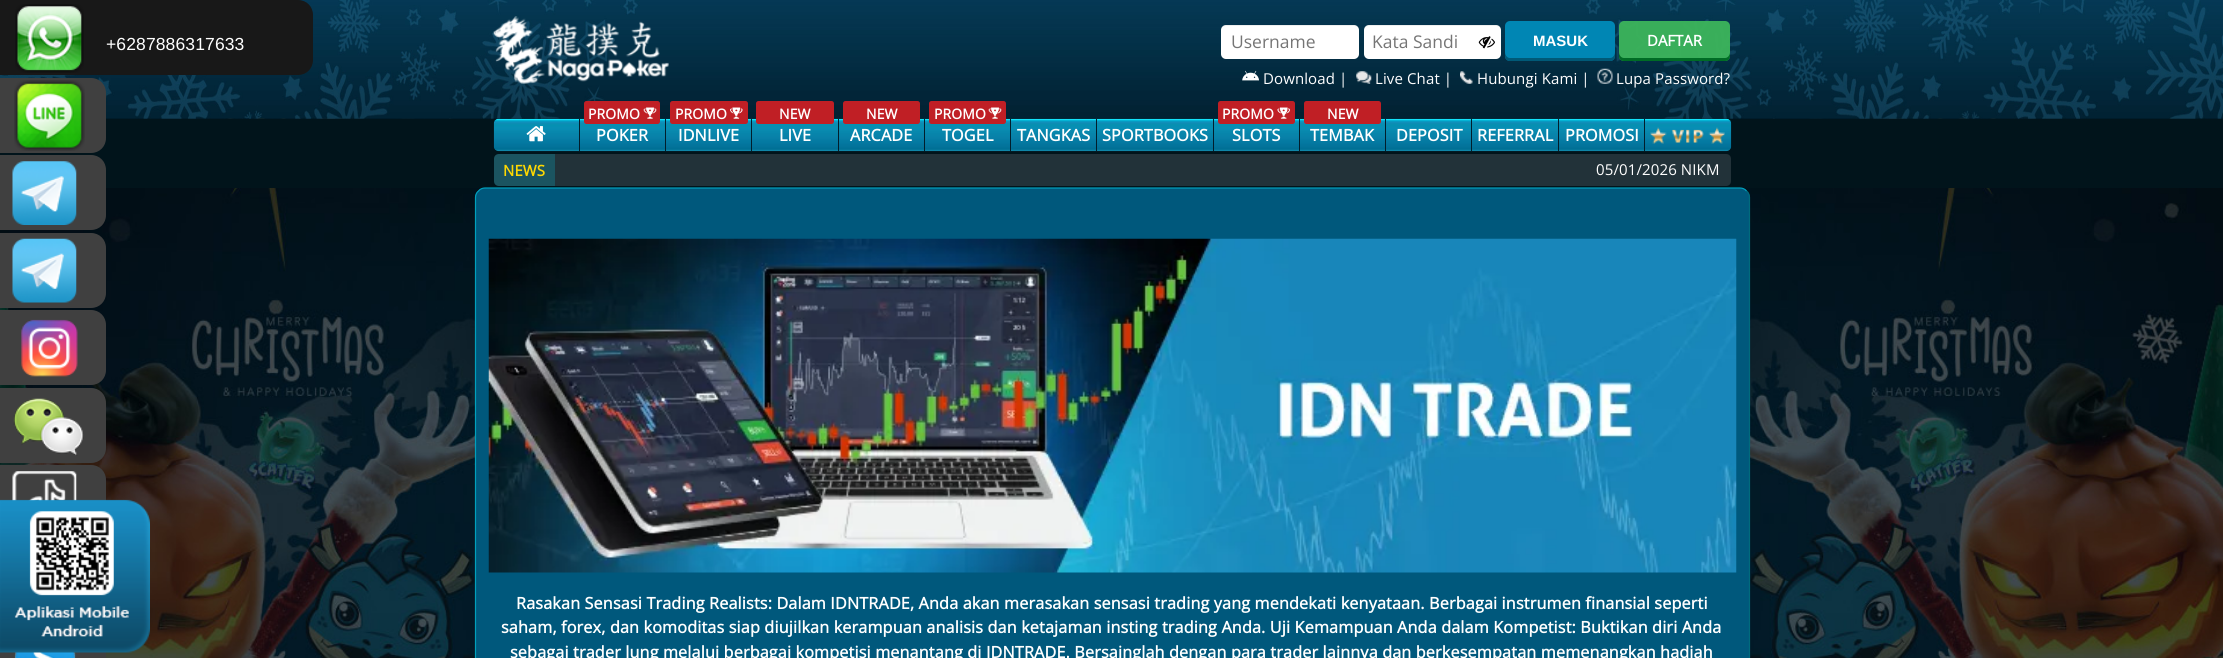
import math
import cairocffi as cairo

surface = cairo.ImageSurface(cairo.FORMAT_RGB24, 2223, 658)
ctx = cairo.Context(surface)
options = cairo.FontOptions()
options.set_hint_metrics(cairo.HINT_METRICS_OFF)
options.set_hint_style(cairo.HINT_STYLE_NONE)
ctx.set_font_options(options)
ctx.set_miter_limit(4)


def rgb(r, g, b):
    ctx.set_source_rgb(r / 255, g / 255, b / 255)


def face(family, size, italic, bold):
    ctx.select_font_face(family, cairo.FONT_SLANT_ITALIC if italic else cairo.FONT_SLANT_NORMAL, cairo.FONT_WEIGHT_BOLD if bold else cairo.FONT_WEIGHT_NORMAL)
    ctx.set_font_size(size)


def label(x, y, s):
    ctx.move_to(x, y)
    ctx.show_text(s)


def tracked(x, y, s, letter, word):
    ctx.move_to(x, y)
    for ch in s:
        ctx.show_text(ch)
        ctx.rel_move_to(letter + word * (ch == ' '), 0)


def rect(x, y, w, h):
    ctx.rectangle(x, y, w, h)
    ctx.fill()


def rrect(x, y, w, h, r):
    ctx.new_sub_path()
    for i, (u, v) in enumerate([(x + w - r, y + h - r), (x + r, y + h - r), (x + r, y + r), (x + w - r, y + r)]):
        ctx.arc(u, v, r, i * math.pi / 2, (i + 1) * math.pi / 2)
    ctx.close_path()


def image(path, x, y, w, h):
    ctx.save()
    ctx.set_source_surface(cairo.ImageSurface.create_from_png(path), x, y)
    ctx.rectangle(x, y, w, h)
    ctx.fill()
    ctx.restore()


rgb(255, 255, 255)
ctx.paint()
image('image0.png', 0, 118, 2223, 540)
image('image9.png', 0, 0, 2223, 119)
rgb(24, 24, 24)
ctx.new_path()
ctx.move_to(0, 0)
ctx.line_to(298, 0)
ctx.curve_to(306.5, 0, 313, 6.5, 313, 15)
ctx.line_to(313, 60)
ctx.curve_to(313, 68.5, 306.5, 75, 298, 75)
ctx.line_to(0, 75)
ctx.close_path()
ctx.fill()
image('image1.png', 15, 4, 69, 69)
face('Liberation Sans', 17.5, 0, 0)
rgb(255, 255, 255)
tracked(106, 50, '+6287886317633', 0.12, 0)
rgb(1, 20, 27)
rect(0, 119, 2223, 69)
rgb(64, 64, 64)
ctx.new_path()
ctx.move_to(0, 78)
ctx.line_to(91, 78)
ctx.curve_to(99.5, 78, 106, 84.5, 106, 93)
ctx.line_to(106, 138)
ctx.curve_to(106, 146.5, 99.5, 153, 91, 153)
ctx.line_to(0, 153)
ctx.close_path()
ctx.fill()
image('image2.png', 14, 80, 71, 71)
ctx.new_path()
ctx.move_to(0, 155)
ctx.line_to(91, 155)
ctx.curve_to(99.5, 155, 106, 161.5, 106, 170)
ctx.line_to(106, 215)
ctx.curve_to(106, 223.5, 99.5, 230, 91, 230)
ctx.line_to(0, 230)
ctx.close_path()
ctx.fill()
image('image3.png', 12, 161, 65, 64)
ctx.new_path()
ctx.move_to(0, 233)
ctx.line_to(91, 233)
ctx.curve_to(99.5, 233, 106, 239.5, 106, 248)
ctx.line_to(106, 293)
ctx.curve_to(106, 301.5, 99.5, 308, 91, 308)
ctx.line_to(0, 308)
ctx.close_path()
ctx.fill()
image('image4.png', 12, 238, 65, 65)
ctx.new_path()
ctx.move_to(0, 310)
ctx.line_to(91, 310)
ctx.curve_to(99.5, 310, 106, 316.5, 106, 325)
ctx.line_to(106, 370)
ctx.curve_to(106, 378.5, 99.5, 385, 91, 385)
ctx.line_to(0, 385)
ctx.close_path()
ctx.fill()
image('image5.png', 21, 319, 57, 58)
ctx.new_path()
ctx.move_to(0, 388)
ctx.line_to(91, 388)
ctx.curve_to(99.5, 388, 106, 394.5, 106, 403)
ctx.line_to(106, 448)
ctx.curve_to(106, 456.5, 99.5, 463, 91, 463)
ctx.line_to(0, 463)
ctx.close_path()
ctx.fill()
image('image6.png', 13, 398, 71, 58)
ctx.new_path()
ctx.move_to(0, 465)
ctx.line_to(91, 465)
ctx.curve_to(99.5, 465, 106, 471.5, 106, 480)
ctx.line_to(106, 525)
ctx.curve_to(106, 533.5, 99.5, 540, 91, 540)
ctx.line_to(0, 540)
ctx.close_path()
ctx.fill()
image('image7.png', 12, 471, 65, 30)
rect(0, 652, 106, 6)
image('image8.png', 14, 652, 62, 6)
image('image10.png', 493, 16, 176, 68)
rgb(255, 255, 255)
rrect(1221, 25, 138, 34, 5)
ctx.fill()
ctx.set_source_rgba(0, 0, 0, 0.07)
ctx.new_path()
ctx.move_to(1226, 26)
ctx.line_to(1354, 26)
ctx.curve_to(1357, 26, 1359, 28, 1359, 31)
ctx.line_to(1359, 30)
ctx.curve_to(1359, 27, 1357, 25, 1354, 25)
ctx.line_to(1226, 25)
ctx.curve_to(1223, 25, 1221, 27, 1221, 30)
ctx.line_to(1221, 31)
ctx.curve_to(1221, 28, 1223, 26, 1226, 26)
ctx.close_path()
ctx.fill()
face('Open Sans', 17.5, 0, 0)
rgb(117, 117, 117)
label(1231, 48, 'Username')
rgb(255, 255, 255)
rrect(1364, 25, 137, 34, 5)
ctx.fill()
ctx.set_source_rgba(0, 0, 0, 0.07)
ctx.new_path()
ctx.move_to(1369, 26)
ctx.line_to(1496, 26)
ctx.curve_to(1499, 26, 1501, 28, 1501, 31)
ctx.line_to(1501, 30)
ctx.curve_to(1501, 27, 1499, 25, 1496, 25)
ctx.line_to(1369, 25)
ctx.curve_to(1366, 25, 1364, 27, 1364, 30)
ctx.line_to(1364, 31)
ctx.curve_to(1364, 28, 1366, 26, 1369, 26)
ctx.close_path()
ctx.fill()
rgb(117, 117, 117)
label(1372, 48, 'Kata Sandi')
image('image11.png', 1478, 36, 17, 13)
rgb(0, 134, 180)
rrect(1505, 21, 110, 40, 5)
ctx.fill()
rgb(0, 89, 119)
ctx.new_path()
ctx.move_to(1505, 52)
ctx.line_to(1505, 56)
ctx.curve_to(1505, 59, 1507, 61, 1510, 61)
ctx.line_to(1610, 61)
ctx.curve_to(1613, 61, 1615, 59, 1615, 56)
ctx.line_to(1615, 52)
ctx.curve_to(1615, 55, 1613, 58, 1610, 58)
ctx.line_to(1510, 58)
ctx.curve_to(1507, 58, 1505, 55, 1505, 52)
ctx.close_path()
ctx.fill()
face('Liberation Sans', 15, 0, 1)
rgb(255, 255, 255)
label(1533, 46, 'MASUK')
ctx.set_source_rgba(0.235, 0.702, 0.357, 0.96)
rrect(1619, 21, 111, 40, 5)
ctx.fill()
rgb(0, 108, 37)
ctx.new_path()
ctx.move_to(1619, 52)
ctx.line_to(1619, 56)
ctx.curve_to(1619, 59, 1621, 61, 1624, 61)
ctx.line_to(1725, 61)
ctx.curve_to(1728, 61, 1730, 59, 1730, 56)
ctx.line_to(1730, 52)
ctx.curve_to(1730, 55, 1728, 58, 1725, 58)
ctx.line_to(1624, 58)
ctx.curve_to(1621, 58, 1619, 55, 1619, 52)
ctx.close_path()
ctx.fill()
face('Open Sans', 15, 0, 1)
rgb(255, 255, 255)
label(1647, 46, 'DAFTAR')
image('image12.png', 1242, 70, 17, 11)
face('Open Sans', 15, 0, 0)
tracked(1263, 84, 'Download |', 0.12, 0)
image('image13.png', 1356, 71, 16, 13)
tracked(1375, 84, 'Live Chat |', 0.12, 0)
image('image14.png', 1460, 71, 13, 13)
tracked(1477, 84, 'Hubungi Kami |', 0.12, 0)
image('image15.png', 1597, 68, 16, 16)
tracked(1616, 84, 'Lupa Password?', 0.12, 0)
image('image16.png', 493, 118, 1239, 34)
image('image17.png', 526, 126, 20, 16)
rgb(1, 30, 44)
rect(579, 119, 1, 32)
rgb(192, 31, 37)
rrect(584, 101, 76, 23, 2.5)
ctx.fill()
face('Open Sans', 14, 0, 1)
rgb(255, 255, 255)
tracked(588, 119, 'PROMO', 0.12, 0)
image('image18.png', 643, 107, 14, 12)
face('Open Sans', 16.25, 0, 1)
tracked(596, 141, 'POKER', 0.12, 0)
rgb(1, 30, 44)
rect(665, 119, 1, 32)
rgb(192, 31, 37)
rrect(670, 101, 78, 23, 2.5)
ctx.fill()
face('Open Sans', 14, 0, 1)
rgb(255, 255, 255)
tracked(675, 119, 'PROMO', 0.12, 0)
image('image19.png', 730, 107, 13, 12)
face('Open Sans', 16.25, 0, 1)
tracked(678, 141, 'IDNLIVE', 0.12, 0)
rgb(1, 30, 44)
rect(751, 119, 1, 32)
rgb(192, 31, 37)
rrect(756, 101, 78, 23, 2.5)
ctx.fill()
face('Open Sans', 14, 0, 1)
rgb(255, 255, 255)
tracked(779, 119, 'NEW', 0.12, 0)
face('Open Sans', 16.25, 0, 1)
tracked(779, 141, 'LIVE', 0.12, 0)
rgb(1, 30, 44)
rect(838, 119, 1, 32)
rgb(192, 31, 37)
rrect(843, 101, 77, 23, 2.5)
ctx.fill()
face('Open Sans', 14, 0, 1)
rgb(255, 255, 255)
tracked(866, 119, 'NEW', 0.12, 0)
face('Open Sans', 16.25, 0, 1)
tracked(850, 141, 'ARCADE', 0.12, 0)
rgb(1, 30, 44)
rect(924, 119, 1, 32)
rgb(192, 31, 37)
rrect(929, 101, 77, 23, 2.5)
ctx.fill()
face('Open Sans', 14, 0, 1)
rgb(255, 255, 255)
tracked(934, 119, 'PROMO', 0.12, 0)
image('image20.png', 988, 107, 14, 12)
face('Open Sans', 16.25, 0, 1)
tracked(942, 141, 'TOGEL', 0.12, 0)
rgb(1, 30, 44)
rect(1010, 119, 1, 32)
rgb(255, 255, 255)
tracked(1017, 141, 'TANGKAS', 0.12, 0)
rgb(1, 30, 44)
rect(1096, 119, 1, 32)
rgb(255, 255, 255)
tracked(1102, 141, 'SPORTBOOKS', 0.12, 0)
rgb(1, 30, 44)
rect(1213, 119, 1, 32)
rgb(192, 31, 37)
rrect(1218, 101, 77, 23, 2.5)
ctx.fill()
face('Open Sans', 14, 0, 1)
rgb(255, 255, 255)
tracked(1222, 119, 'PROMO', 0.12, 0)
image('image21.png', 1277, 107, 13, 12)
face('Open Sans', 16.25, 0, 1)
tracked(1232, 141, 'SLOTS', 0.12, 0)
rgb(1, 30, 44)
rect(1299, 119, 1, 32)
rgb(192, 31, 37)
rrect(1304, 101, 77, 23, 2.5)
ctx.fill()
face('Open Sans', 14, 0, 1)
rgb(255, 255, 255)
tracked(1327, 119, 'NEW', 0.12, 0)
face('Open Sans', 16.25, 0, 1)
tracked(1310, 141, 'TEMBAK', 0.12, 0)
rgb(1, 30, 44)
rect(1385, 119, 1, 32)
rgb(255, 255, 255)
tracked(1396, 141, 'DEPOSIT', 0.12, 0)
rgb(1, 30, 44)
rect(1471, 119, 1, 32)
rgb(255, 255, 255)
tracked(1477, 141, 'REFERRAL', 0.12, 0)
rgb(1, 30, 44)
rect(1558, 119, 1, 32)
rgb(255, 255, 255)
tracked(1565, 141, 'PROMOSI', 0.12, 0)
rgb(1, 30, 44)
rect(1644, 119, 1, 32)
image('image22.png', 1650, 127, 75, 17)
rgb(27, 84, 96)
ctx.new_path()
ctx.move_to(499, 154)
ctx.line_to(555, 154)
ctx.line_to(555, 186)
ctx.line_to(499, 186)
ctx.curve_to(496, 186, 494, 184, 494, 181)
ctx.line_to(494, 159)
ctx.curve_to(494, 156, 496, 154, 499, 154)
ctx.close_path()
ctx.fill()
face('Open Sans', 15, 0, 1)
rgb(255, 216, 1)
tracked(503, 176, 'NEWS', 0.12, 0)
rgb(34, 50, 57)
ctx.new_path()
ctx.move_to(555, 154)
ctx.line_to(1726, 154)
ctx.curve_to(1729, 154, 1731, 156, 1731, 159)
ctx.line_to(1731, 181)
ctx.curve_to(1731, 184, 1729, 186, 1726, 186)
ctx.line_to(555, 186)
ctx.close_path()
ctx.fill()
face('Open Sans', 15, 0, 0)
rgb(255, 255, 255)
tracked(1596, 175, '05/01/2026 NIKM', 0.12, 0)
rgb(0, 88, 124)
rrect(475, 188, 1275, 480, 10)
ctx.fill()
ctx.new_path()
ctx.move_to(1746.5, 191)
ctx.curve_to(1748.5, 192.5, 1749.5, 195, 1749.5, 197.5)
ctx.line_to(1749.5, 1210)
ctx.curve_to(1749.5, 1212.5, 1748.5, 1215, 1746.5, 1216.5)
ctx.curve_to(1745, 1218.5, 1742.5, 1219.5, 1740, 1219.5)
ctx.line_to(485, 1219.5)
ctx.curve_to(482.5, 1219.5, 480, 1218.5, 478.5, 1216.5)
rgb(0, 107, 125)
ctx.set_line_width(1.2)
ctx.stroke()
ctx.new_path()
ctx.move_to(478.5, 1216.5)
ctx.curve_to(476.5, 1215, 475.5, 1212.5, 475.5, 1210)
ctx.line_to(475.5, 197.5)
ctx.curve_to(475.5, 195, 476.5, 192.5, 478.5, 191)
ctx.curve_to(480, 189, 482.5, 188, 485, 188)
ctx.line_to(1740, 188)
ctx.curve_to(1742.5, 188, 1745, 189, 1746.5, 191)
rgb(0, 160, 188)
ctx.stroke()
image('image23.png', 488, 238, 1249, 335)
face('Open Sans', 16.25, 0, 1)
rgb(255, 255, 255)
tracked(516, 609, 'Rasakan Sensasi Trading Realists: Dalam IDNTRADE, Anda akan merasakan sensasi trading yang mendekati kenyataan. Berbagai instrumen finansial seperti', 0.12, 0)
tracked(501, 633, 'saham, forex, dan komoditas siap diujilkan kerampuan analisis dan ketajaman insting trading Anda. Uji Kemampuan Anda dalam Kompetist: Buktikan diri Anda', 0.12, 0)
tracked(510, 658, 'sebagai trader lung melalui berbagai kompetisi menantang di IDNTRADE. Bersainglah dengan para trader lainnya dan berkesempatan memenangkan hadiah', 0.12, 0)
image('image24.png', 0, 499, 150, 154)
surface.write_to_png('render.png')
